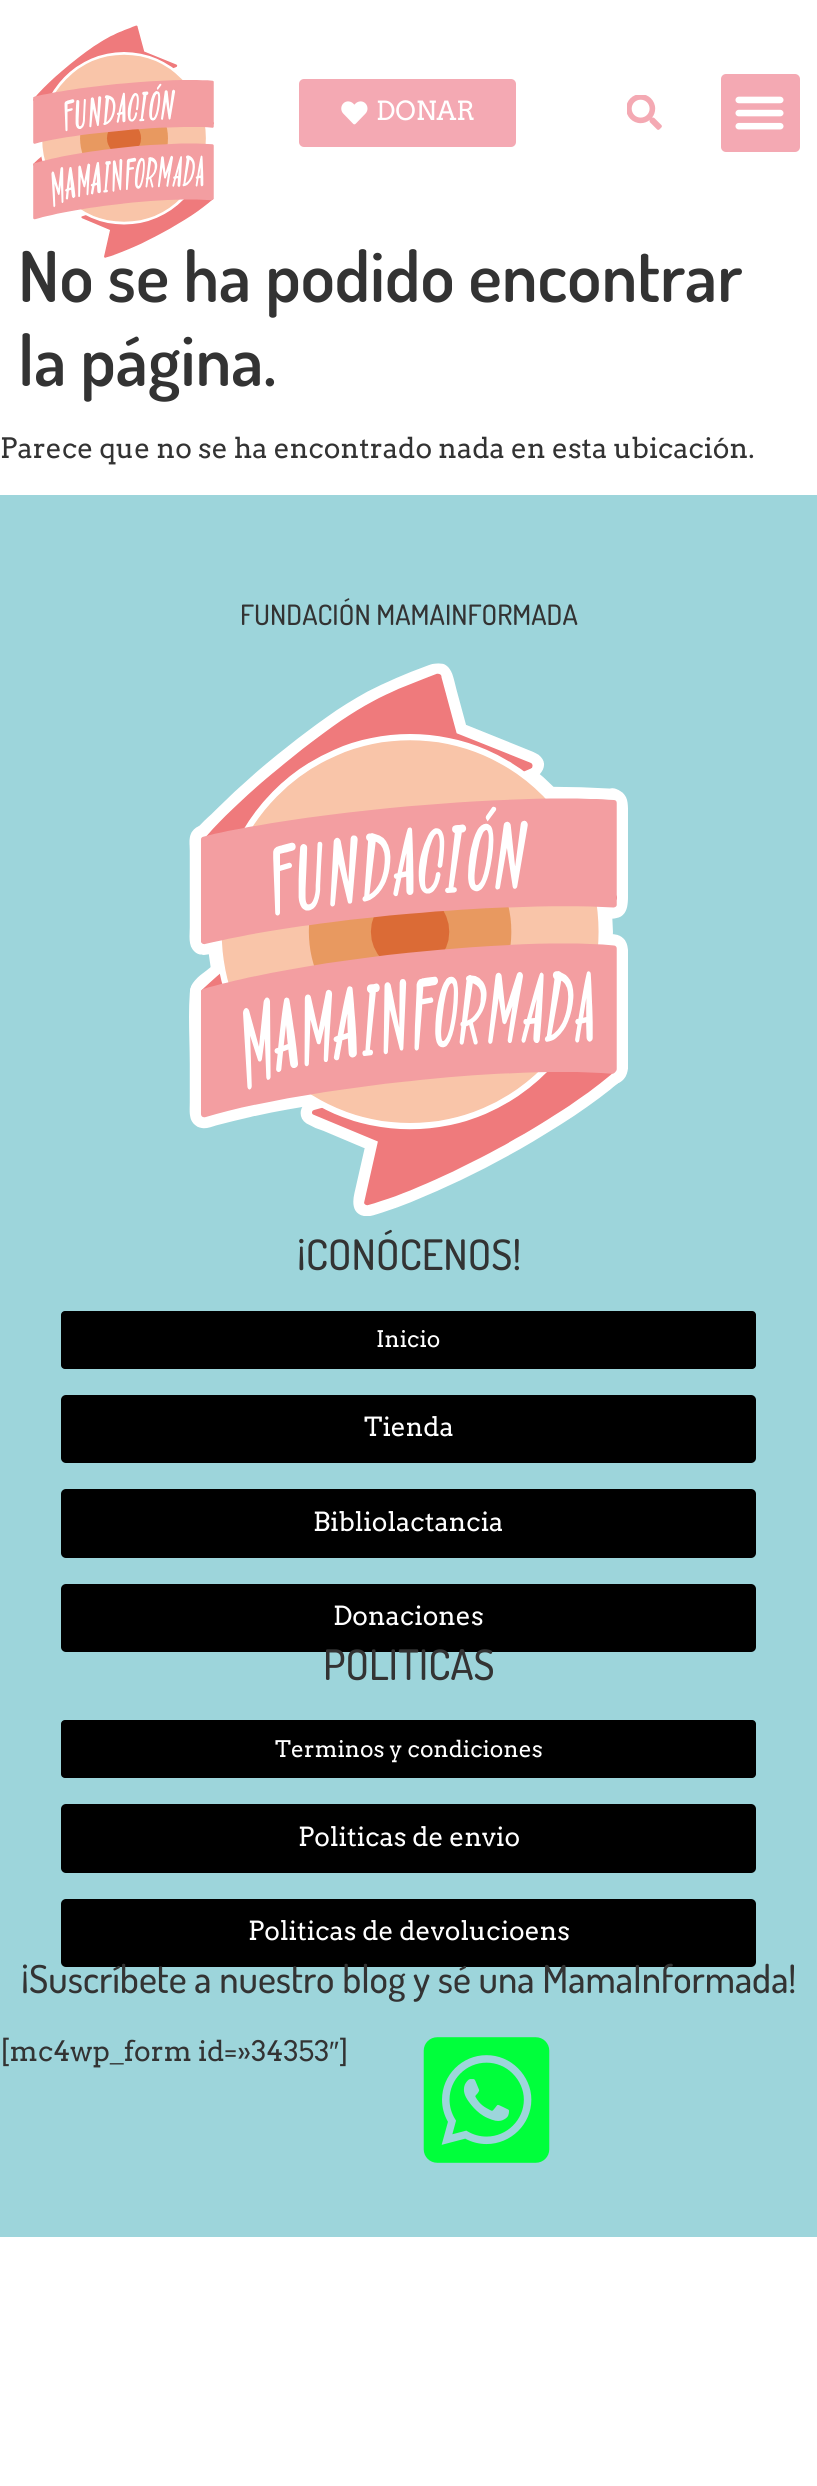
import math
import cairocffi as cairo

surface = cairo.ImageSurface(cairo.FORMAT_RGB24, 817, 2486)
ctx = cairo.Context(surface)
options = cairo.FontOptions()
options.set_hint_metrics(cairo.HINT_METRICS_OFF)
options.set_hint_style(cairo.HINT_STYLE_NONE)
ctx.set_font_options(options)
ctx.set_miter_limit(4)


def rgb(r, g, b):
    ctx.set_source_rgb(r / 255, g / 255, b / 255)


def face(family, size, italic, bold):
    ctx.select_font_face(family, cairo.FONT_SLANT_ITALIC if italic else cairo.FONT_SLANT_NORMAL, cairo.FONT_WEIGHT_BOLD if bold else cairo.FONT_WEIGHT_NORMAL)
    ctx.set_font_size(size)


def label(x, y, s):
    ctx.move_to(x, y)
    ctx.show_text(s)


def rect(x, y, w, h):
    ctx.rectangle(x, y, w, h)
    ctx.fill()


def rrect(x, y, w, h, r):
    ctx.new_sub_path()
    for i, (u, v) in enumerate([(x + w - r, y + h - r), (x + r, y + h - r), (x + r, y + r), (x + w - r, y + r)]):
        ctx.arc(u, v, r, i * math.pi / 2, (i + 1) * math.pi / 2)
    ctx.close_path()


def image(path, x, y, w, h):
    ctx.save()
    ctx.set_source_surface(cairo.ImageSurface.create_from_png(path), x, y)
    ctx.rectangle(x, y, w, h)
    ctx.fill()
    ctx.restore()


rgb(255, 255, 255)
ctx.paint()
face('Dosis SemiBold', 70, 0, 0)
rgb(51, 51, 51)
label(18, 302, 'No se ha podido encontrar')
image('image0.png', 33, 25, 181, 233)
rgb(244, 169, 179)
rrect(299, 79, 217, 68, 5)
ctx.fill()
image('image1.png', 341, 101, 27, 24)
face('Arvo', 26.25, 0, 0)
rgb(255, 255, 255)
label(376, 120, 'DONAR')
image('image2.png', 627, 95, 35, 35)
rgb(244, 169, 179)
rrect(721, 74, 79, 78, 5)
ctx.fill()
image('image3.png', 735, 96, 49, 34)
face('Dosis SemiBold', 70, 0, 0)
rgb(51, 51, 51)
label(18, 386, 'la página.')
face('Arvo', 28, 0, 0)
label(0, 458, 'Parece que no se ha encontrado nada en esta ubicación.')
rgb(157, 213, 219)
rect(0, 495, 817, 1742)
face('Dosis Medium', 28, 0, 0)
rgb(51, 51, 51)
label(240, 625, 'FUNDACIÓN MAMAINFORMADA')
image('image4.png', 189, 663, 439, 553)
face('Dosis Medium', 42, 0, 0)
label(297, 1270, '¡CONÓCENOS!')
rgb(0, 0, 0)
rrect(61, 1311, 695, 58, 4)
ctx.fill()
face('Arvo', 22.75, 0, 0)
rgb(255, 255, 255)
label(376, 1347, 'Inicio')
rgb(0, 0, 0)
rrect(61, 1395, 695, 68, 5)
ctx.fill()
face('Arvo', 26.25, 0, 0)
rgb(255, 255, 255)
label(364, 1436, 'Tienda')
rgb(0, 0, 0)
rrect(61, 1489, 695, 69, 5)
ctx.fill()
rgb(255, 255, 255)
label(313, 1531, 'Bibliolactancia')
rgb(0, 0, 0)
rrect(61, 1584, 695, 68, 5)
ctx.fill()
rgb(255, 255, 255)
label(333, 1625, 'Donaciones')
face('Dosis Medium', 42, 0, 0)
rgb(51, 51, 51)
label(323, 1680, 'POLITICAS')
rgb(0, 0, 0)
rrect(61, 1720, 695, 58, 4)
ctx.fill()
face('Arvo', 22.75, 0, 0)
rgb(255, 255, 255)
label(275, 1757, 'Terminos y condiciones')
rgb(0, 0, 0)
rrect(61, 1804, 695, 69, 5)
ctx.fill()
face('Arvo', 26.25, 0, 0)
rgb(255, 255, 255)
label(298, 1846, 'Politicas de envio')
rgb(0, 0, 0)
rrect(61, 1899, 695, 68, 5)
ctx.fill()
rgb(255, 255, 255)
label(248, 1940, 'Politicas de devolucioens')
face('Dosis Medium', 38.5, 0, 0)
rgb(51, 51, 51)
label(21, 1993, '¡Suscríbete a nuestro blog y sé una MamaInformada!')
face('Arvo', 28, 0, 0)
label(0, 2061, '[mc4wp_form id=»34353')
face('Liberation Sans', 28, 0, 0)
label(329, 2061, '″')
face('Arvo', 28, 0, 0)
label(339, 2061, ']')
image('image5.png', 423, 2037, 127, 126)
surface.write_to_png('render.png')
